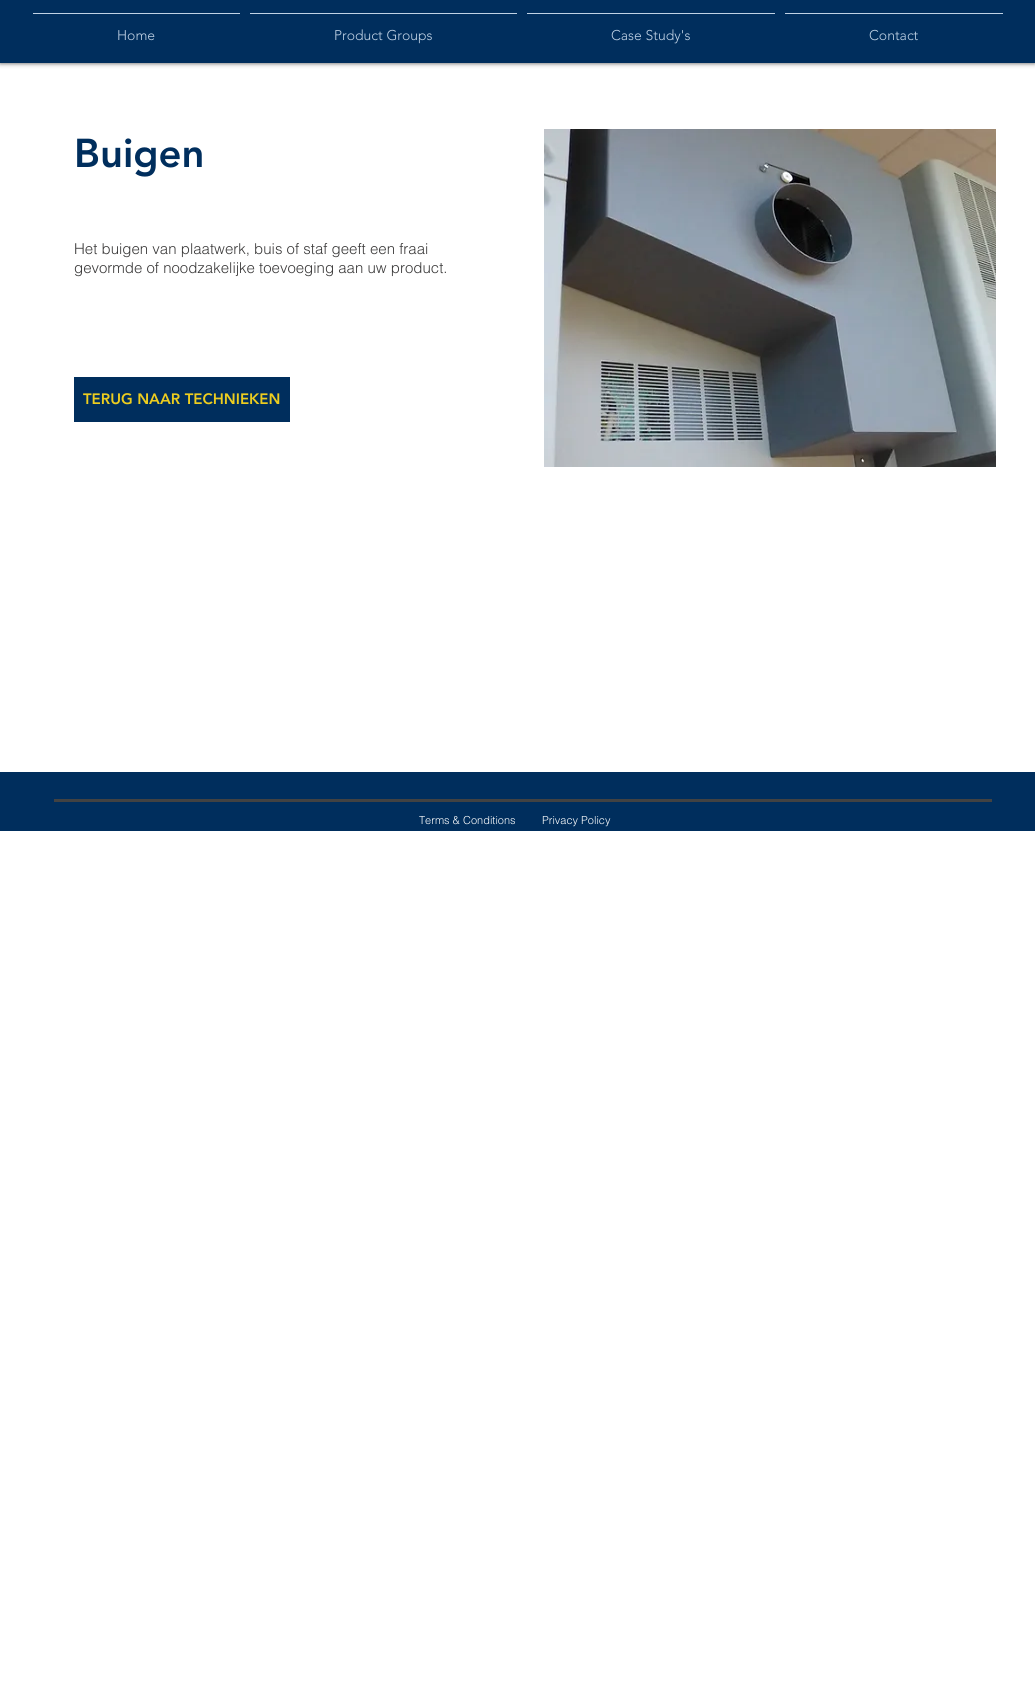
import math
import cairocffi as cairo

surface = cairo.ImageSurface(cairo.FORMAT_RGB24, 1035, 1689)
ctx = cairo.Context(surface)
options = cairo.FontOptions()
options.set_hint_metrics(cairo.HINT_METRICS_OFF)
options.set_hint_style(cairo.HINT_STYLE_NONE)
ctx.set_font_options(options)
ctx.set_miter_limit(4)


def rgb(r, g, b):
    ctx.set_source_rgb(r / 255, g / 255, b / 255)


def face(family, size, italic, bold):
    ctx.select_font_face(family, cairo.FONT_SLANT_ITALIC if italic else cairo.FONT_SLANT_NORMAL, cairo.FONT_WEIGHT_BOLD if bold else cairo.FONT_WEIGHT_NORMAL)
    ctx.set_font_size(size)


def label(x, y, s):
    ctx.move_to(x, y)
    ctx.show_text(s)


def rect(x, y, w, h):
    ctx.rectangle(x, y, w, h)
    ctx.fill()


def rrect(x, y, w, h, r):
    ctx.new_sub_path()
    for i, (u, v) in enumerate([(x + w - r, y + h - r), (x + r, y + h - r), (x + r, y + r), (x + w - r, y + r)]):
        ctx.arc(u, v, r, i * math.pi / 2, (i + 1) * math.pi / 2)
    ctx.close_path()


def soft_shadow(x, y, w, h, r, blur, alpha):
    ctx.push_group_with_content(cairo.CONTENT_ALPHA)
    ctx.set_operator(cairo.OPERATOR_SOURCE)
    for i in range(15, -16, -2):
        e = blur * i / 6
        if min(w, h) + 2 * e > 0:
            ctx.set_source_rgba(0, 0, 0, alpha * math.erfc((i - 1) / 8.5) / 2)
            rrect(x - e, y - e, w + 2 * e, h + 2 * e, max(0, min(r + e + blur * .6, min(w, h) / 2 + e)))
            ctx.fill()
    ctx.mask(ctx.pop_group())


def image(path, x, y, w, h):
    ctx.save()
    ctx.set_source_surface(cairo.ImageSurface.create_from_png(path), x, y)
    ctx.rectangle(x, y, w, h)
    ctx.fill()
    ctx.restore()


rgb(255, 255, 255)
ctx.paint()
rgb(0, 0, 0)
soft_shadow(0, 0, 1035, 63, 0, 2.5, 0.7)
rgb(0, 46, 93)
rect(0, 0, 1035, 63)
rgb(192, 210, 229)
rect(33, 13, 207, 1)
face('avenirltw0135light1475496 Light', 14, 0, 0)
label(117, 40, 'Home')
rect(250, 13, 267, 1)
label(334, 40, 'Product Groups')
rect(527, 13, 248, 1)
label(611, 40, 'Case Study\'s')
rect(785, 13, 218, 1)
label(869, 40, 'Contact')
face('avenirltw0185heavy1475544 Black', 40, 0, 0)
rgb(0, 46, 93)
label(74, 167, 'Buigen')
image('image0.png', 544, 129, 452, 338)
face('helvetica Light', 15, 0, 0)
rgb(59, 58, 58)
label(74, 254, 'Het buigen van plaatwerk, buis of staf geeft een fraai')
label(74, 273, 'gevormde of noodzakelijke toevoeging aan uw product.')
rgb(0, 46, 93)
rect(74, 377, 216, 45)
face('avenirltw0185heavy1475544 Black', 15, 0, 0)
rgb(237, 205, 31)
label(83, 404, 'TERUG NAAR TECHNIEKEN')
rgb(0, 46, 93)
rect(0, 772, 1035, 59)
rgb(66, 66, 66)
rect(54, 799, 938, 3)
face('helvetica Light', 11, 0, 0)
rgb(255, 255, 255)
label(419, 824, 'Terms & Conditions')
label(542, 824, 'Privacy Policy')
surface.write_to_png('render.png')
